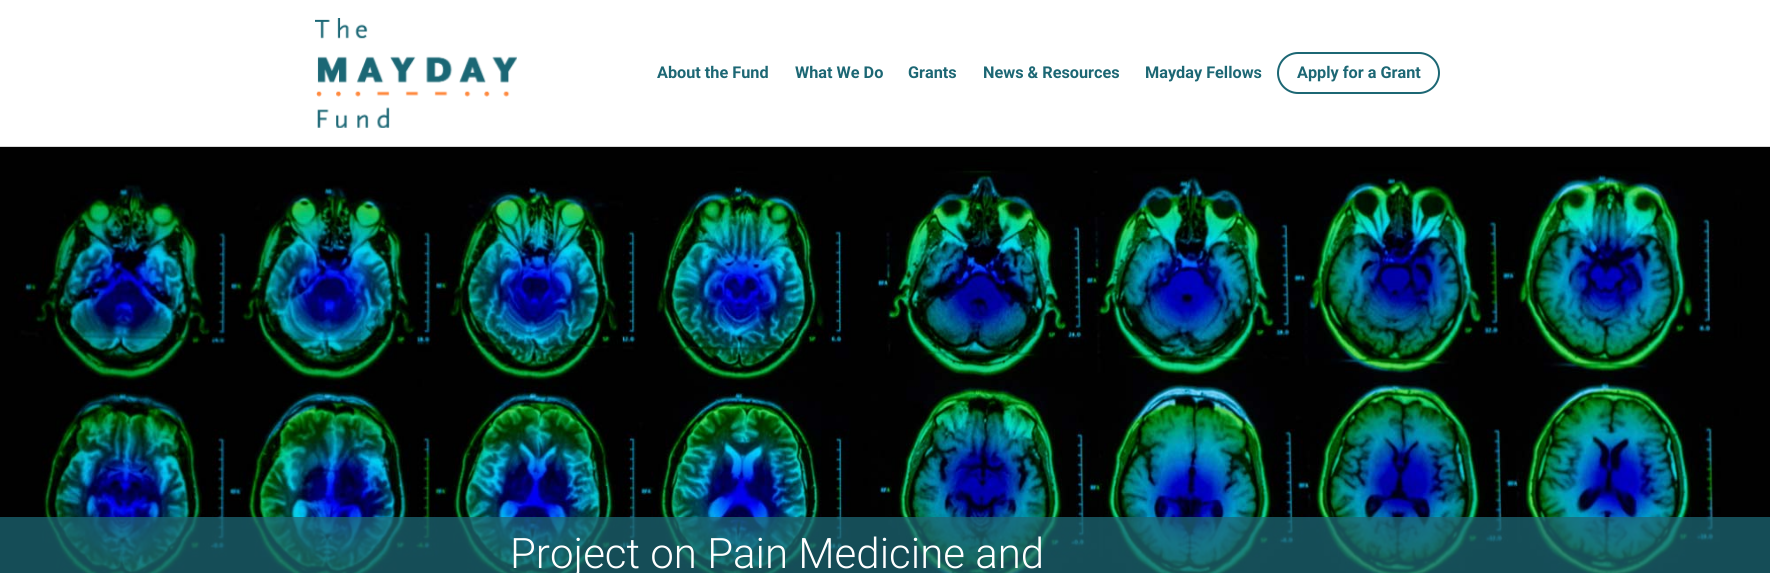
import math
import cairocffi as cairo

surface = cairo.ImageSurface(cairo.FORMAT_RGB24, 1770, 573)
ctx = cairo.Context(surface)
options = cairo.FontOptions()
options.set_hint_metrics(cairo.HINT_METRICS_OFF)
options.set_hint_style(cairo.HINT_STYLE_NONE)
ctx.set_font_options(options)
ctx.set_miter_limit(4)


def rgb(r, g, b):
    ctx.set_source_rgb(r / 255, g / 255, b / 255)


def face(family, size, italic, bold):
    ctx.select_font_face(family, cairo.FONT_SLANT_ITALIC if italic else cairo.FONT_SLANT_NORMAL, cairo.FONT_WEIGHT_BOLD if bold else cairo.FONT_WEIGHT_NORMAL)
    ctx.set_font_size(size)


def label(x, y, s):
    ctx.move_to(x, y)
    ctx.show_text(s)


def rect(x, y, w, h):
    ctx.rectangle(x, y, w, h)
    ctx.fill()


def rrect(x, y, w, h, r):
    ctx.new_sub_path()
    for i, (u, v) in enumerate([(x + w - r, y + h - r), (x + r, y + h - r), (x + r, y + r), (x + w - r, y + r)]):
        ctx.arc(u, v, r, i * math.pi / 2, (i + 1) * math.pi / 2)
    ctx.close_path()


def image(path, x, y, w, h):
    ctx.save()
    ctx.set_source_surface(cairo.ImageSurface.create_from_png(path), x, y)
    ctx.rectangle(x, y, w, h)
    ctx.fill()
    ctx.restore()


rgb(255, 255, 255)
ctx.paint()
rgb(217, 217, 217)
rect(0, 146, 1770, 1)
image('image0.png', 315, 18, 202, 110)
face('Roboto', 16.25, 0, 1)
rgb(28, 103, 116)
label(657, 78, 'About the Fund')
label(795, 78, 'What We Do')
label(908, 78, 'Grants')
label(983, 78, 'News & Resources')
label(1145, 78, 'Mayday Fellows')
rrect(1278, 53, 161, 40, 20)
ctx.stroke()
label(1297, 78, 'Apply for a Grant')
image('image1.png', 0, 147, 1770, 426)
ctx.set_source_rgba(0.11, 0.404, 0.455, 0.75)
rect(0, 517, 1770, 56)
face('Roboto Light', 42, 0, 0)
rgb(255, 255, 255)
label(510, 568, 'Project on Pain Medicine and')
surface.write_to_png('render.png')
